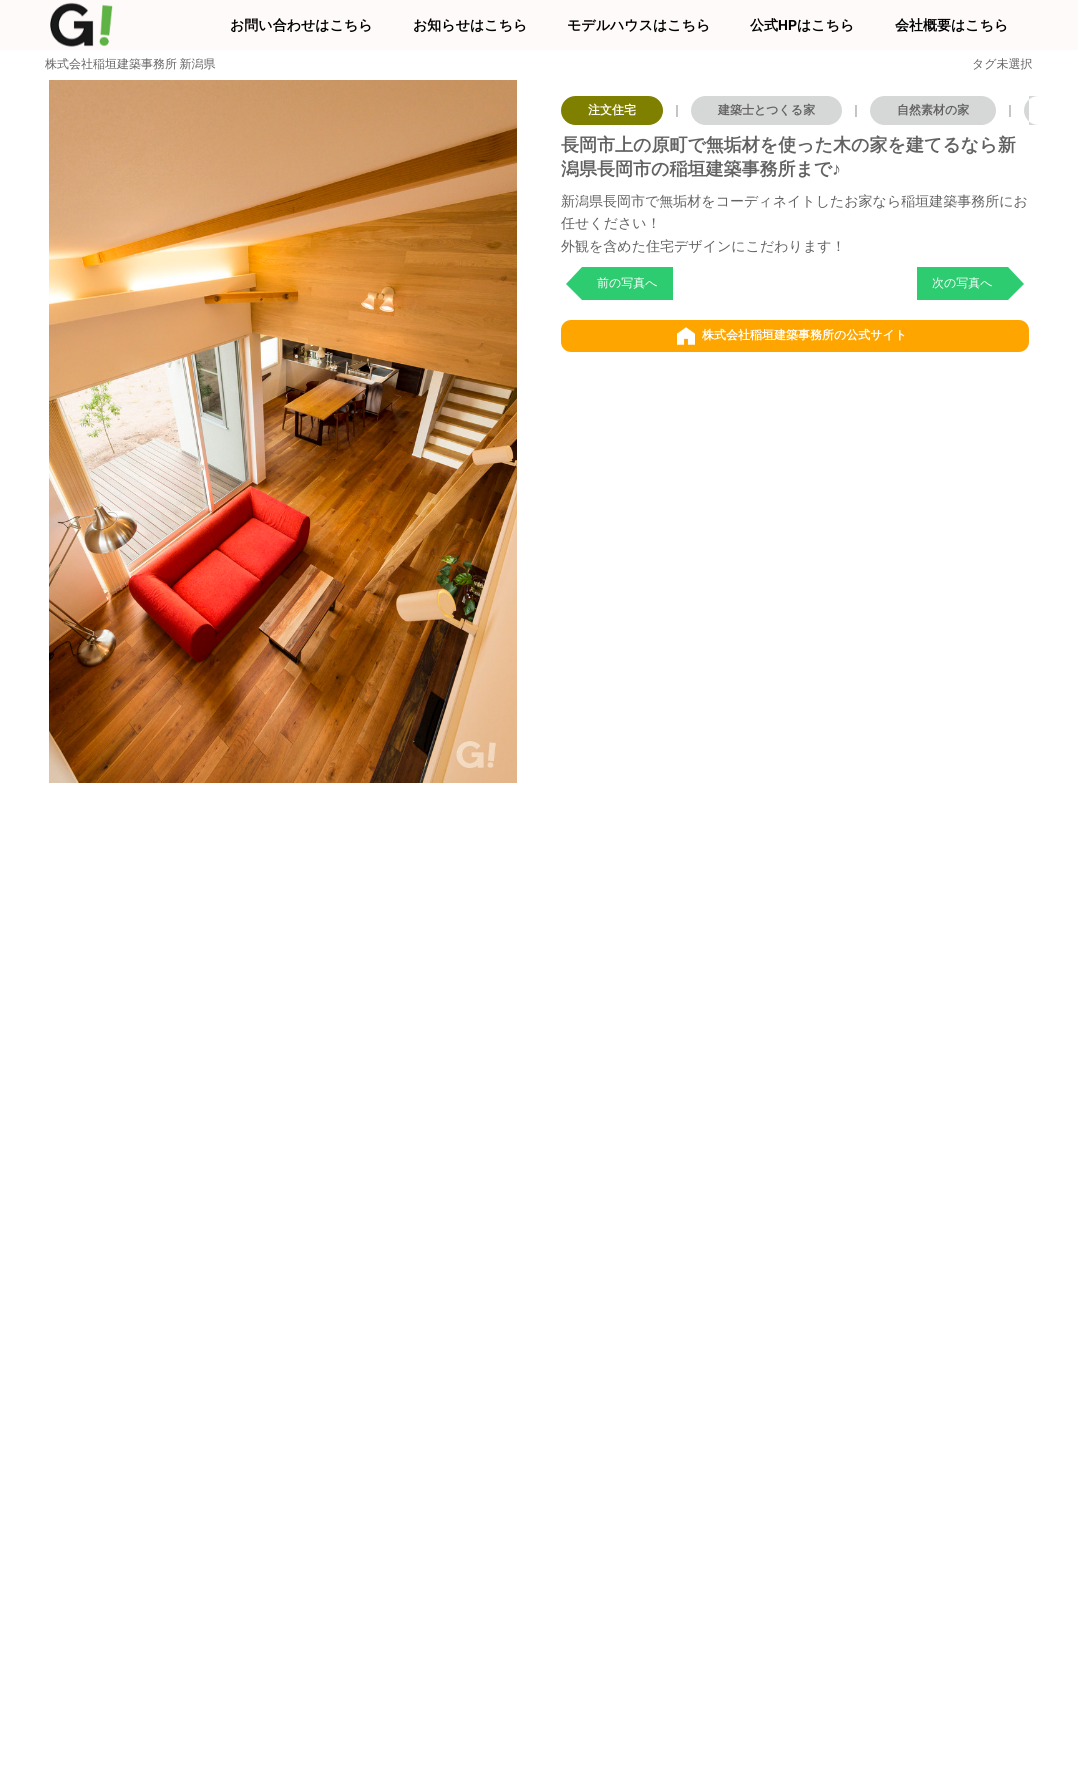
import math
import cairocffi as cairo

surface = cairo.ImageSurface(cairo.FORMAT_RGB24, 1078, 1791)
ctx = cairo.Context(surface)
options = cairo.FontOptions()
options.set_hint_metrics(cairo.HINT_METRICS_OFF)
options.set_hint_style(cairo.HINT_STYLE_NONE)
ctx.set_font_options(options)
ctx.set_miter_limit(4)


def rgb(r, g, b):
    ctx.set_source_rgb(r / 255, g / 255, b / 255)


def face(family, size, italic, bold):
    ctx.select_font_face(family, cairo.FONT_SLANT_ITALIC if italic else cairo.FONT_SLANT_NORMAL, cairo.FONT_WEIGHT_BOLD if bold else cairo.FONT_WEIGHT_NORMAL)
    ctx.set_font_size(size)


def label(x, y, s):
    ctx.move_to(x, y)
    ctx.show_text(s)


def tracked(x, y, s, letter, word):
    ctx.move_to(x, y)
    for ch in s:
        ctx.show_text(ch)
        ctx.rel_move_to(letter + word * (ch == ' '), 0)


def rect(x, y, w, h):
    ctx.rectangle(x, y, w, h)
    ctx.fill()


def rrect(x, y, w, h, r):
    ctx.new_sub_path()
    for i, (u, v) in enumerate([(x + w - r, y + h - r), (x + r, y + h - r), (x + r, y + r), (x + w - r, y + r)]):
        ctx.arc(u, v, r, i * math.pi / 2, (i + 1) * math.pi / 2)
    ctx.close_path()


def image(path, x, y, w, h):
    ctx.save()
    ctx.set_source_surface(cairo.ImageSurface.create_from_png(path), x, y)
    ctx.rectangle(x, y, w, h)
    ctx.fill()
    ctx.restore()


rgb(255, 255, 255)
ctx.paint()
rgb(255, 250, 250)
rect(0, 0, 1078, 50)
image('image0.png', 50, 2, 63, 45)
face('WenQuanYi Zen Hei', 14, 0, 1)
rgb(0, 0, 0)
label(230, 30, 'お問い合わせはこちら')
label(413, 30, 'お知らせはこちら')
label(567, 30, 'モデルハウスはこちら')
label(750, 30, '公式')
face('Roboto', 14, 0, 1)
label(778, 30, 'HP')
face('WenQuanYi Zen Hei', 14, 0, 1)
label(797, 30, 'はこちら')
label(895, 30, '会社概要はこちら')
face('WenQuanYi Zen Hei Medium', 12, 0, 0)
rgb(98, 98, 98)
tracked(45, 68, '株式会社稲垣建築事務所 新潟県', 0, -1)
label(972, 68, 'タグ未選択')
image('image1.png', 49, 80, 468, 703)
rgb(128, 128, 0)
rrect(561, 96, 102, 29, 14.5)
ctx.fill()
face('WenQuanYi Zen Hei', 12, 0, 1)
rgb(255, 255, 255)
label(588, 114, '注文住宅')
face('WenQuanYi Zen Hei Medium', 12, 0, 0)
rgb(98, 98, 98)
label(671, 114, '｜')
rgb(214, 215, 215)
rrect(691, 96, 151, 29, 14.5)
ctx.fill()
face('WenQuanYi Zen Hei', 12, 0, 1)
rgb(98, 98, 98)
label(718, 114, '建築士とつくる家')
face('WenQuanYi Zen Hei Medium', 12, 0, 0)
label(850, 114, '｜')
rgb(214, 215, 215)
rrect(870, 96, 126, 29, 14.5)
ctx.fill()
face('WenQuanYi Zen Hei', 12, 0, 1)
rgb(98, 98, 98)
label(897, 114, '自然素材の家')
face('WenQuanYi Zen Hei Medium', 12, 0, 0)
label(1004, 114, '｜')
rgb(214, 215, 215)
ctx.new_path()
ctx.move_to(1038.5, 96)
ctx.line_to(1029, 96)
ctx.line_to(1029, 125)
ctx.line_to(1038.5, 125)
ctx.curve_to(1030.5, 125, 1024, 118.5, 1024, 110.5)
ctx.curve_to(1024, 102.5, 1030.5, 96, 1038.5, 96)
ctx.close_path()
ctx.fill()
face('WenQuanYi Zen Hei', 18, 0, 1)
rgb(98, 98, 98)
label(561, 151, '長岡市上の原町で無垢材を使った木の家を建てるなら新')
label(561, 175, '潟県長岡市の稲垣建築事務所まで')
face('Liberation Sans', 18, 0, 1)
label(832, 175, '♪')
face('WenQuanYi Zen Hei Medium', 14, 0, 0)
label(561, 206, '新潟県長岡市で無垢材をコーディネイトしたお家なら稲垣建築事務所にお')
label(561, 228, '任せください！')
label(561, 251, '外観を含めた住宅デザインにこだわります！')
rgb(46, 204, 113)
rect(582, 267, 91, 33)
ctx.new_path()
ctx.move_to(582, 267)
ctx.line_to(582, 300)
ctx.line_to(566, 284)
ctx.close_path()
ctx.fill()
face('WenQuanYi Zen Hei Medium', 12, 0, 0)
rgb(255, 255, 255)
label(597, 287, '前の写真へ')
rgb(46, 204, 113)
rect(917, 267, 91, 33)
rgb(255, 255, 255)
label(932, 287, '次の写真へ')
rgb(46, 204, 113)
ctx.new_path()
ctx.move_to(1008, 300)
ctx.line_to(1008, 267)
ctx.line_to(1024, 284)
ctx.close_path()
ctx.fill()
rgb(255, 165, 0)
rrect(561, 320, 468, 32, 10)
ctx.fill()
image('image2.png', 677, 327, 18, 18)
face('WenQuanYi Zen Hei', 12, 0, 1)
rgb(255, 255, 255)
label(702, 339, '株式会社稲垣建築事務所の公式サイト')
surface.write_to_png('render.png')
